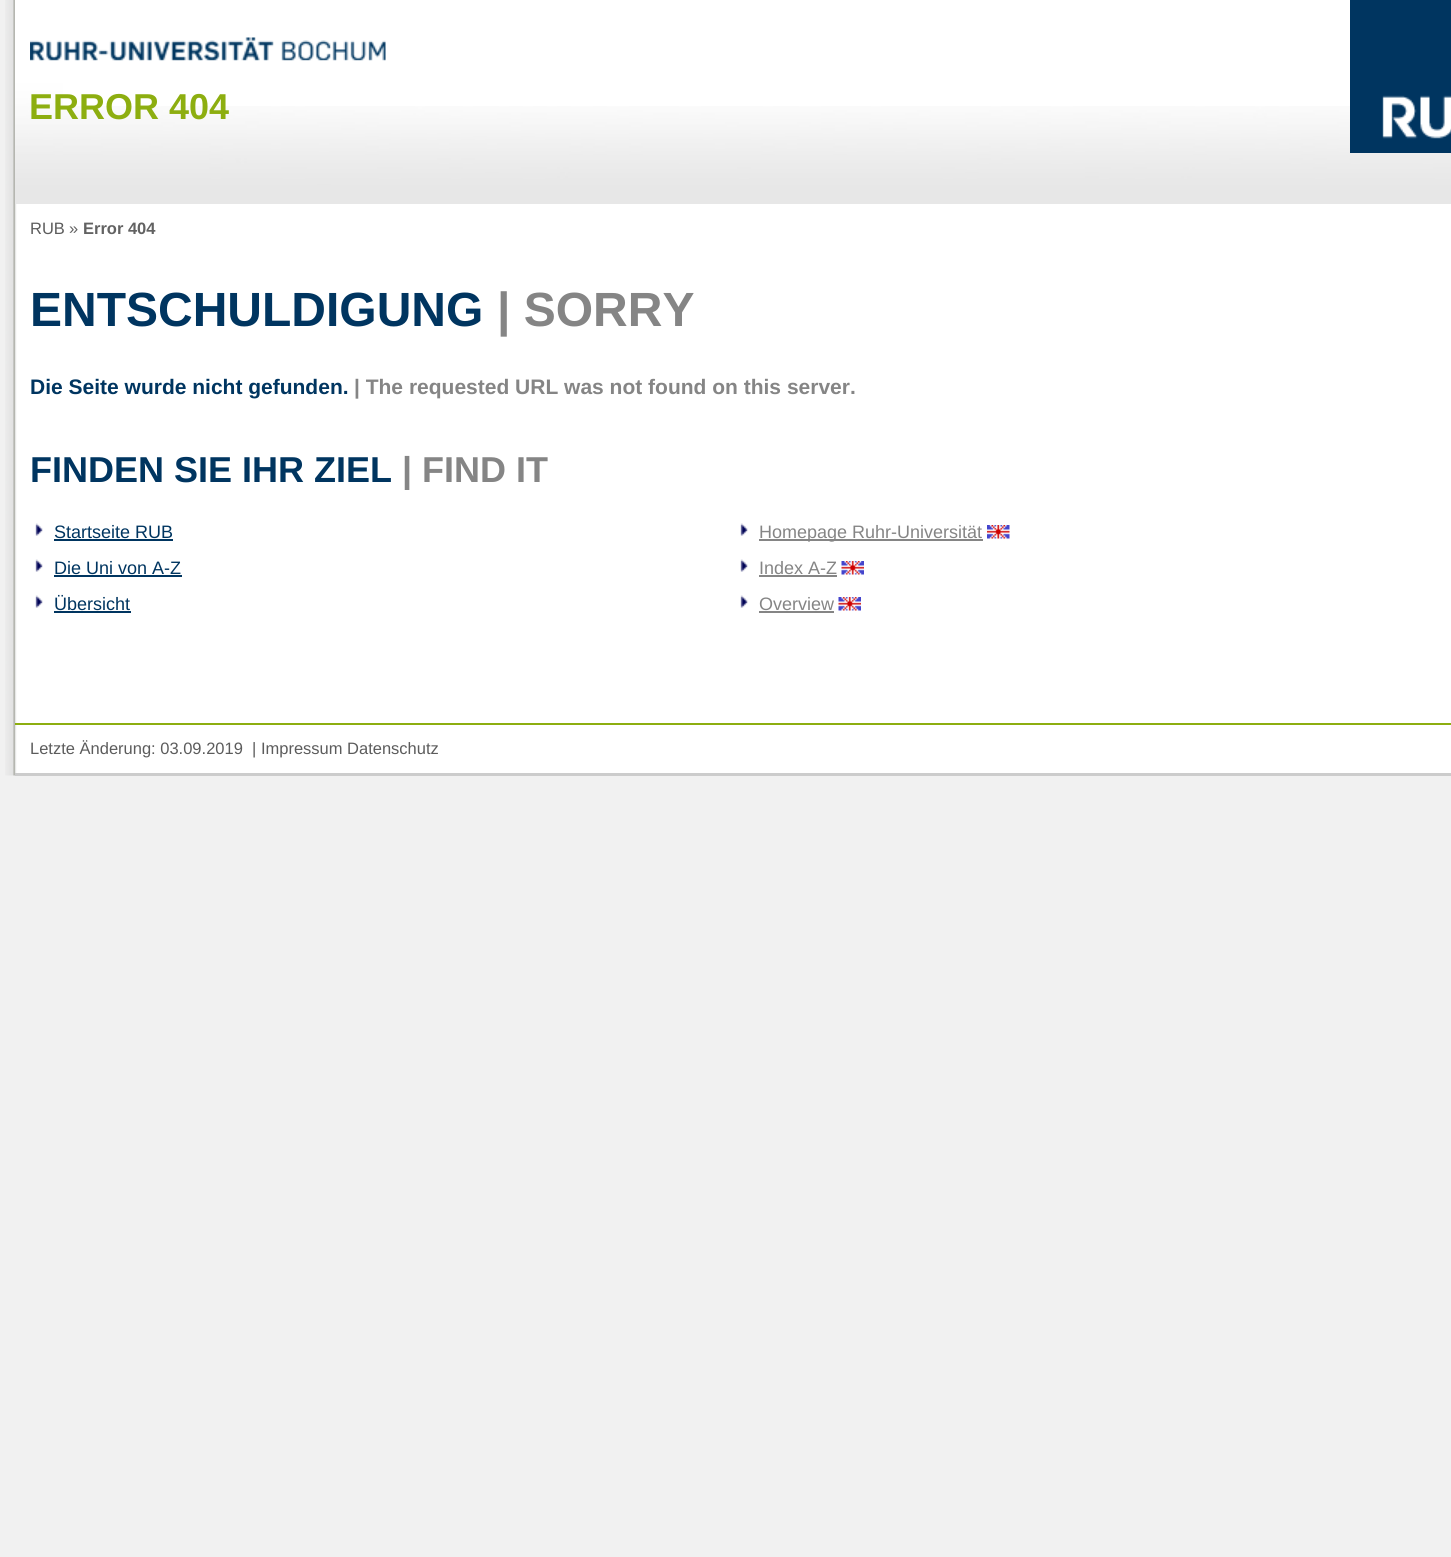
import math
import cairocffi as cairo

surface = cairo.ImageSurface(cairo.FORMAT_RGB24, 1451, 1557)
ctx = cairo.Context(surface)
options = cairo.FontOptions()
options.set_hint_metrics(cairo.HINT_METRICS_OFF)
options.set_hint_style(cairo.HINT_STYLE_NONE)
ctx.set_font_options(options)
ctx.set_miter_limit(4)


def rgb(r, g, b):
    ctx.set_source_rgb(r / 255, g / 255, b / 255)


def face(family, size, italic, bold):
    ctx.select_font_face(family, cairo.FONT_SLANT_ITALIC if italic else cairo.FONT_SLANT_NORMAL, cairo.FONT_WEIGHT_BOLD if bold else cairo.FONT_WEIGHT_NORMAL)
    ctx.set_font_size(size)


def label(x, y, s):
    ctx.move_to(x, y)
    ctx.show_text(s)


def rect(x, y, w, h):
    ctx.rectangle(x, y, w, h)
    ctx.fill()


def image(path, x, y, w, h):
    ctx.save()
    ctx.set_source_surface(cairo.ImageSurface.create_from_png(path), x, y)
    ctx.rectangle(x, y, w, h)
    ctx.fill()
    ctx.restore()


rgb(241, 241, 241)
ctx.paint()
image('image0.png', 5, 0, 1446, 776)
image('image1.png', 63, 106, 1388, 98)
image('image2.png', 15, 0, 48, 204)
image('image3.png', 30, 37, 356, 24)
image('image4.png', 1350, 0, 101, 153)
face('Liberation Sans', 36, 0, 1)
rgb(141, 174, 16)
label(29, 119, 'ERROR 404')
face('Liberation Sans', 16.5, 0, 0)
rgb(92, 92, 92)
label(30, 234, 'RUB')
rgb(98, 98, 98)
label(69, 234, '»')
face('Liberation Sans', 16.5, 0, 1)
label(83, 234, 'Error 404')
face('Liberation Sans', 48, 0, 1)
rgb(0, 53, 96)
label(30, 326, 'ENTSCHULDIGUNG')
rgb(133, 133, 133)
label(497, 326, '| SORRY')
face('Liberation Sans', 21, 0, 1)
rgb(0, 53, 96)
label(30, 394, 'Die Seite wurde nicht gefunden.')
rgb(133, 133, 133)
label(354, 394, '| The requested URL was not found on this server.')
face('Liberation Sans', 36, 0, 1)
rgb(0, 53, 96)
label(30, 482, 'FINDEN SIE IHR ZIEL')
rgb(133, 133, 133)
label(402, 482, '| FIND IT')
image('image5.png', 35, 523, 8, 13)
face('Liberation Sans', 18, 0, 0)
rgb(0, 53, 96)
label(54, 538, 'Startseite RUB')
rect(54, 539, 119, 2)
image('image5.png', 35, 559, 8, 13)
label(54, 574, 'Die Uni von A-Z')
rect(54, 575, 128, 2)
image('image5.png', 35, 595, 8, 13)
label(54, 610, 'Übersicht')
rect(54, 611, 77, 2)
image('image6.png', 740, 523, 8, 13)
rgb(133, 133, 133)
rect(759, 539, 224, 2)
label(759, 538, 'Homepage Ruhr-Universität')
image('image7.png', 987, 525, 23, 14)
image('image6.png', 740, 559, 8, 13)
label(759, 574, 'Index A-Z')
rect(759, 575, 78, 2)
image('image8.png', 841, 561, 23, 14)
image('image6.png', 740, 595, 8, 13)
label(759, 610, 'Overview')
rect(759, 611, 75, 2)
image('image8.png', 838, 597, 23, 14)
rgb(141, 174, 16)
rect(15, 723, 1436, 2)
rgb(204, 204, 204)
rect(15, 773, 1436, 3)
face('Liberation Sans', 16.5, 0, 0)
rgb(92, 92, 92)
label(30, 754, 'Letzte Änderung: 03.09.2019  | Impressum Datenschutz')
surface.write_to_png('render.png')
